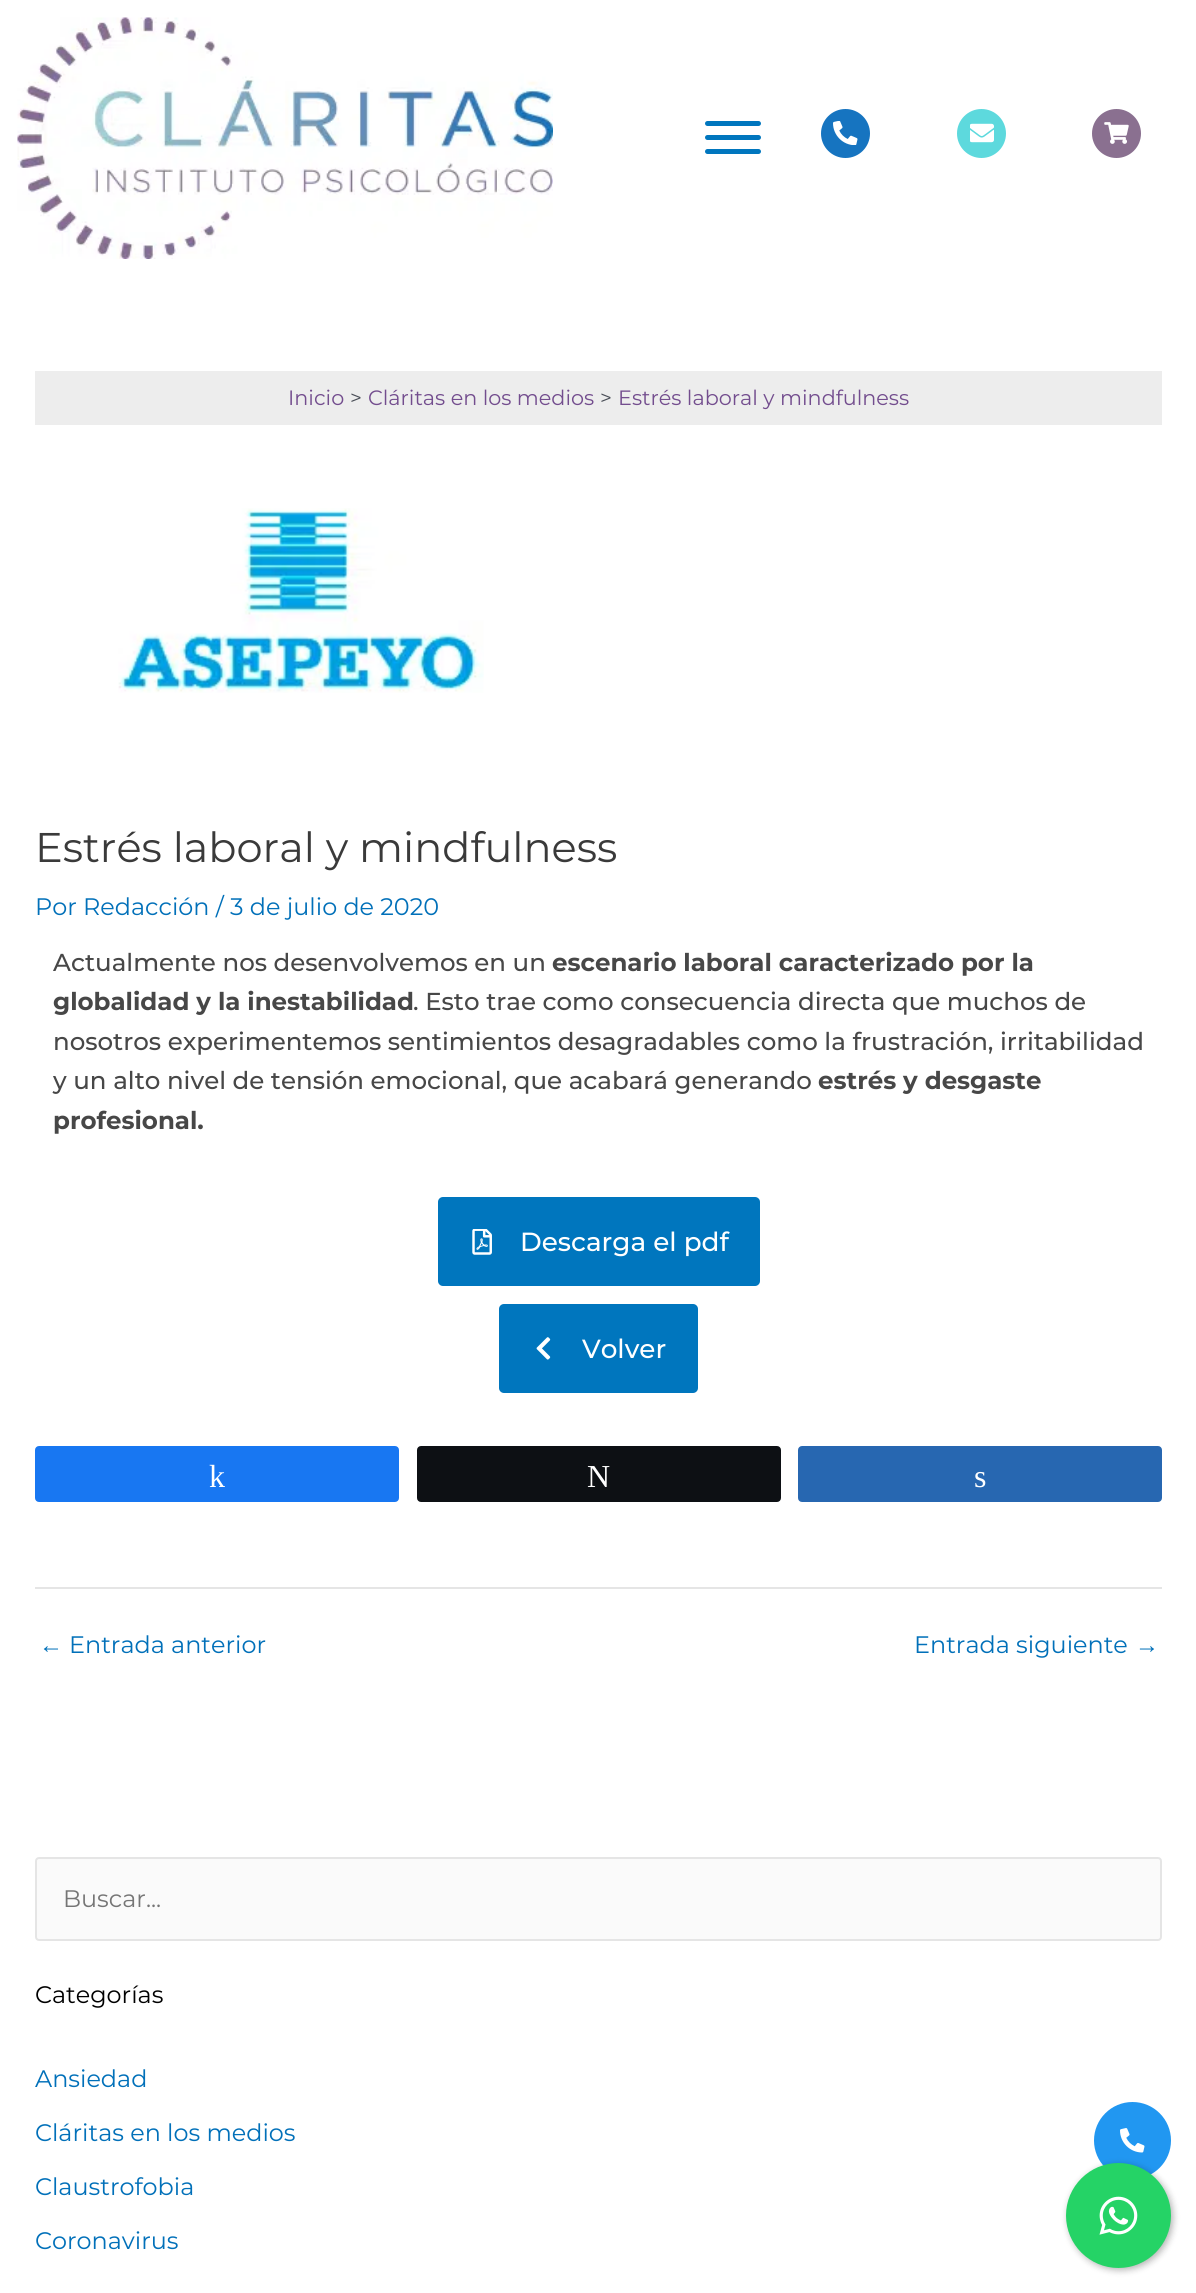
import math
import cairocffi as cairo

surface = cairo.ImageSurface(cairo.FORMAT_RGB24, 1196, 2293)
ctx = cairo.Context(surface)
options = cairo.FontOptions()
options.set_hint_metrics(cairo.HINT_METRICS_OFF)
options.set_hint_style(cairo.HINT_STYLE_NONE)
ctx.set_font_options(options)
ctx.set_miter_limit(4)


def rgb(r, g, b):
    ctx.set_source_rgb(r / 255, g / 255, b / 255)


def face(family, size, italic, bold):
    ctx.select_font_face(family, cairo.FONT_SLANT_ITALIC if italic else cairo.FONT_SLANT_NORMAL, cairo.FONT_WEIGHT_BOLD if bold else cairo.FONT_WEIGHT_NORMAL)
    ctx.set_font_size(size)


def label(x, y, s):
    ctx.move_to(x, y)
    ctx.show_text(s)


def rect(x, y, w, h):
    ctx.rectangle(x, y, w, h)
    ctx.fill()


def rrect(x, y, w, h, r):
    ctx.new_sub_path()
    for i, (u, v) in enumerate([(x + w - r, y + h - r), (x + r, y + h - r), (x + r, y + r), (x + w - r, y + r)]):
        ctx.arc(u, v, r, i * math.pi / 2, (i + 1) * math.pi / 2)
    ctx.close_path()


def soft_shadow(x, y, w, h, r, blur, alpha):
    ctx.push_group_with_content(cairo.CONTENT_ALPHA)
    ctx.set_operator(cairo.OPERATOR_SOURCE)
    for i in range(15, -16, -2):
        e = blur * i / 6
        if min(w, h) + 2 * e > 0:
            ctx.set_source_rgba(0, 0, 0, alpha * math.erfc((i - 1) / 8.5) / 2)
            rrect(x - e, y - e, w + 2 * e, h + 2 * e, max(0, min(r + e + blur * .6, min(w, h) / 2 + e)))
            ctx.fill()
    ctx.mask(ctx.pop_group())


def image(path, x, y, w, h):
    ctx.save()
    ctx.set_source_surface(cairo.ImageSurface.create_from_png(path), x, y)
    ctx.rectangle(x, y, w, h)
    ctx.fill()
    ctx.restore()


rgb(255, 255, 255)
ctx.paint()
image('image0.png', 17, 17, 536, 242)
rgb(0, 118, 190)
rrect(705, 121, 56, 5, 2.5)
ctx.fill()
rrect(705, 135, 56, 5, 2.5)
ctx.fill()
rrect(705, 149, 56, 5, 2.5)
ctx.fill()
rgb(22, 116, 192)
ctx.arc(845.5, 133.5, 24.5, 0, 2 * math.pi)
ctx.fill()
image('image1.png', 833, 121, 25, 24)
rgb(93, 217, 221)
ctx.arc(981.5, 133.5, 24.5, 0, 2 * math.pi)
ctx.fill()
image('image2.png', 970, 123, 24, 20)
rgb(138, 112, 144)
ctx.arc(1116.5, 133.5, 24.5, 0, 2 * math.pi)
ctx.fill()
image('image3.png', 1104, 122, 25, 22)
rgb(237, 237, 237)
rect(35, 371, 1127, 54)
face('Montserrat', 20.75, 0, 0)
rgb(115, 77, 142)
label(288, 405, 'Inicio')
rgb(75, 79, 88)
label(350, 405, '>')
rgb(115, 77, 142)
label(368, 405, 'Cláritas en los medios')
rgb(75, 79, 88)
label(600, 405, '>')
rgb(115, 77, 142)
label(618, 405, 'Estrés laboral y mindfulness')
image('image4.png', 118, 508, 366, 185)
face('Montserrat', 41.5, 0, 0)
rgb(58, 58, 58)
label(35, 862, 'Estrés laboral y mindfulness')
face('Montserrat', 23.9, 0, 0)
rgb(1, 112, 185)
label(35, 915, 'Por Redacción / 3 de julio de 2020')
face('Montserrat Medium', 24.5, 0, 0)
rgb(71, 71, 71)
label(53, 971, 'Actualmente nos desenvolvemos en un')
face('Montserrat', 24.5, 0, 1)
label(552, 971, 'escenario laboral caracterizado por la')
label(53, 1010, 'globalidad y la inestabilidad')
face('Montserrat Medium', 24.5, 0, 0)
label(413, 1010, '. Esto trae como consecuencia directa que muchos de')
label(53, 1050, 'nosotros experimentemos sentimientos desagradables como la frustración, irritabilidad')
label(53, 1089, 'y un alto nivel de tensión emocional, que acabará generando')
face('Montserrat', 24.5, 0, 1)
label(818, 1089, 'estrés y desgaste')
label(53, 1129, 'profesional.')
rgb(0, 118, 190)
rrect(438, 1197, 322, 89, 5)
ctx.fill()
image('image5.png', 472, 1229, 20, 26)
face('Montserrat Medium', 26.25, 0, 0)
rgb(255, 255, 255)
label(520, 1251, 'Descarga el pdf')
rgb(0, 118, 190)
rrect(499, 1304, 199, 89, 5)
ctx.fill()
image('image6.png', 536, 1337, 15, 23)
rgb(255, 255, 255)
label(582, 1358, 'Volver')
rgb(24, 119, 242)
rrect(36, 1447, 362, 54, 3)
ctx.fill_preserve()
ctx.stroke()
face('Liberation Serif', 32, 0, 0)
rgb(255, 255, 255)
label(209, 1487, 'k')
rgb(13, 16, 20)
rrect(418, 1447, 362, 54, 3)
ctx.fill_preserve()
ctx.stroke()
rgb(255, 255, 255)
label(587, 1487, 'N')
rgb(39, 103, 177)
rrect(799, 1447, 362, 54, 3)
ctx.fill_preserve()
ctx.stroke()
rgb(255, 255, 255)
label(974, 1487, 's')
rgb(229, 229, 229)
rect(35, 1587, 1127, 2)
face('Liberation Sans', 23.9, 0, 0)
rgb(1, 112, 185)
label(39, 1653, '←')
face('Montserrat', 23.9, 0, 0)
label(69, 1653, 'Entrada anterior')
label(914, 1653, 'Entrada siguiente')
face('Liberation Sans', 23.9, 0, 0)
label(1135, 1653, '→')
rgb(250, 250, 250)
rrect(36, 1858, 1125, 82, 3)
ctx.fill_preserve()
rgb(229, 229, 229)
ctx.stroke()
face('Montserrat', 23.9, 0, 0)
rgb(117, 117, 117)
label(63, 1907, 'Buscar...')
rgb(0, 0, 0)
label(35, 2003, 'Categorías')
rgb(1, 112, 185)
label(35, 2087, 'Ansiedad')
label(35, 2141, 'Cláritas en los medios')
label(35, 2195, 'Claustrofobia')
label(35, 2249, 'Coronavirus')
rgb(33, 151, 241)
ctx.new_path()
ctx.arc(1132.5, 2140.5, 38.5, 0, 2 * math.pi)
ctx.fill()
image('image7.png', 1120, 2128, 25, 25)
rgb(0, 0, 0)
soft_shadow(1068, 2165, 105, 105, 52.5, 3.5, 0.3)
rgb(37, 211, 102)
ctx.arc(1118.5, 2215.5, 52.5, 0, 2 * math.pi)
ctx.fill()
image('image8.png', 1099, 2196, 39, 39)
surface.write_to_png('render.png')
